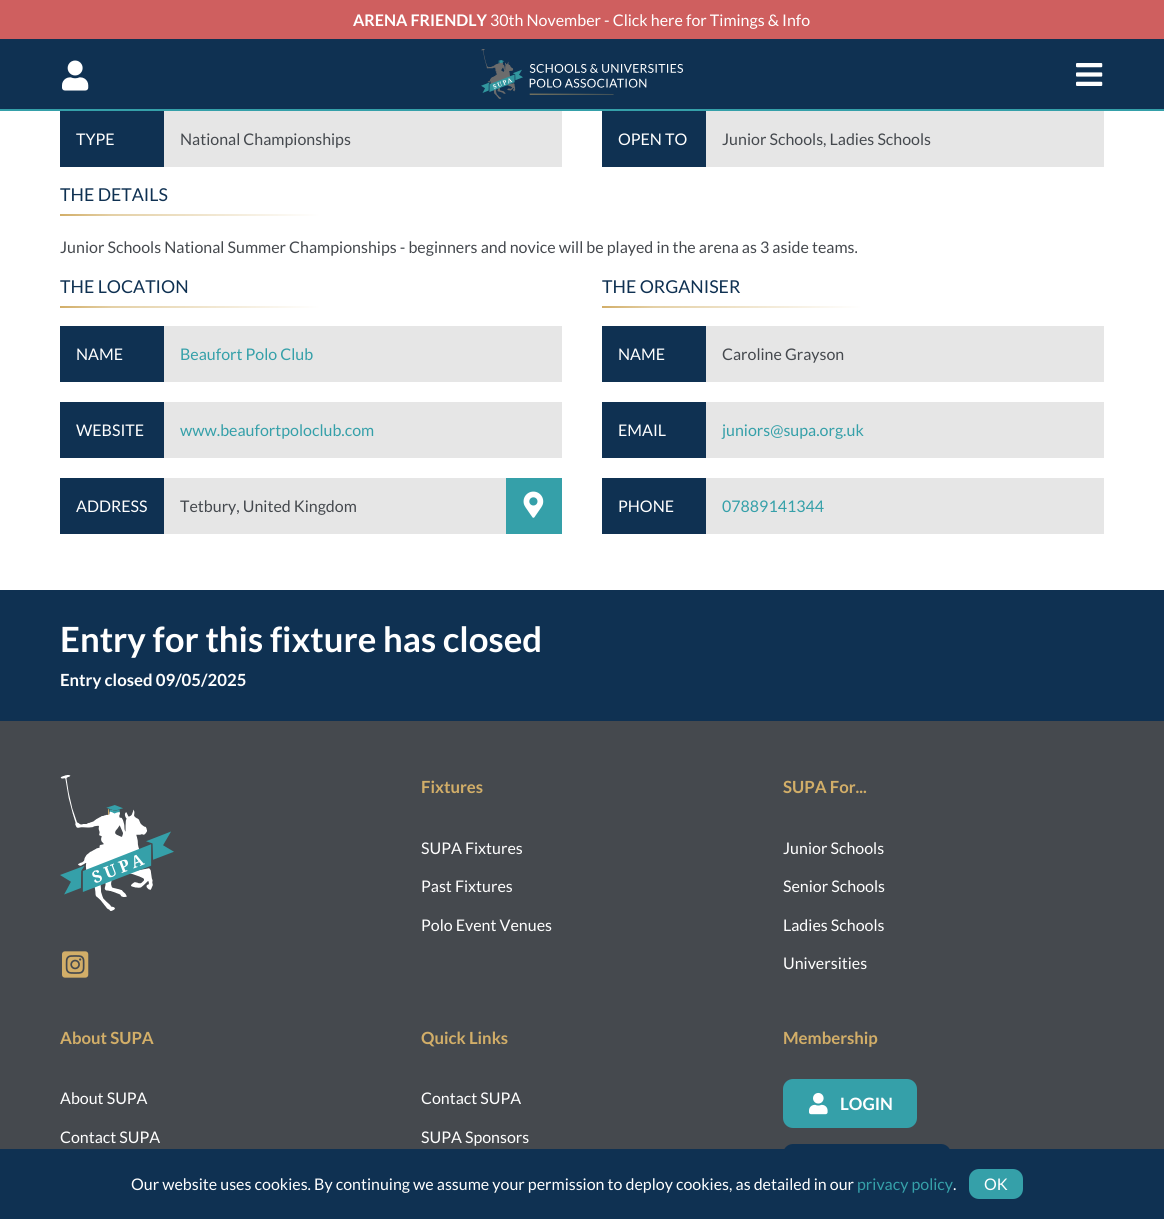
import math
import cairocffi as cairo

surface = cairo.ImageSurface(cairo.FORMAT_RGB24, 1164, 1219)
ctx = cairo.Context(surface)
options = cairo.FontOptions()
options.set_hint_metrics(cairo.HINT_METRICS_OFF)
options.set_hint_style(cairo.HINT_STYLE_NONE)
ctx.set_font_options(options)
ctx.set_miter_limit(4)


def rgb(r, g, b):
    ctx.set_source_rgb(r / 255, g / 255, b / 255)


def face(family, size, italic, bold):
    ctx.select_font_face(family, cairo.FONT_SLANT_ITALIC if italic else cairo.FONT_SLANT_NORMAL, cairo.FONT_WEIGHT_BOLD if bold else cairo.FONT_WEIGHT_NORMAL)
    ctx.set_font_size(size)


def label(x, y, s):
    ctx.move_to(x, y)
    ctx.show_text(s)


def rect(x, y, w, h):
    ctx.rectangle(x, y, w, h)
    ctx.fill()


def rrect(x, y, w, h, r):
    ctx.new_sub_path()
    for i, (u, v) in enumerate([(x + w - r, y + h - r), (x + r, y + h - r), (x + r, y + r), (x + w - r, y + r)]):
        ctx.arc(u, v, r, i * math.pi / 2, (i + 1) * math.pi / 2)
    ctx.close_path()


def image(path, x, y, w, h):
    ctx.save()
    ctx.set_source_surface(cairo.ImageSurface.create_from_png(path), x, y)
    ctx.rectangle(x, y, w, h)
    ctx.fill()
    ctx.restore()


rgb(255, 255, 255)
ctx.paint()
rgb(207, 95, 95)
rect(0, 0, 1164, 39)
face('Lato', 16, 0, 1)
rgb(255, 255, 255)
label(353, 26, 'ARENA FRIENDLY')
face('Lato', 16, 0, 0)
label(490, 26, '30th November - Click here for Timings & Info')
rgb(15, 49, 82)
rect(0, 39, 1164, 70)
rgb(53, 160, 169)
rect(0, 109, 1164, 2)
image('image0.png', 62, 60, 27, 31)
image('image1.png', 481, 49, 202, 50)
image('image2.png', 1076, 63, 27, 23)
rgb(230, 230, 230)
rect(164, 111, 398, 56)
rgb(15, 49, 82)
rect(60, 111, 104, 56)
rgb(255, 255, 255)
label(76, 145, 'TYPE')
rgb(69, 73, 78)
label(180, 145, 'National Championships')
rgb(230, 230, 230)
rect(706, 111, 398, 56)
rgb(15, 49, 82)
rect(602, 111, 104, 56)
rgb(255, 255, 255)
label(618, 145, 'OPEN TO')
rgb(69, 73, 78)
label(722, 145, 'Junior Schools, Ladies Schools')
face('Lato', 17.75, 0, 0)
rgb(15, 49, 82)
label(60, 201, 'THE DETAILS')
gradient = cairo.LinearGradient(60, 215, 320, 215)
gradient.add_color_stop_rgba(0, 0.824, 0.682, 0.408, 1)
gradient.add_color_stop_rgba(0.2, 0.894, 0.816, 0.651, 1)
gradient.add_color_stop_rgba(1, 1, 1, 1, 1)
ctx.set_source(gradient)
rect(60, 214, 260, 2)
face('Lato', 16, 0, 0)
rgb(69, 73, 78)
label(60, 253, 'Junior Schools National Summer Championships - beginners and novice will be played in the arena as 3 aside teams.')
face('Lato', 17.75, 0, 0)
rgb(15, 49, 82)
label(60, 293, 'THE LOCATION')
gradient = cairo.LinearGradient(60, 307, 320, 307)
gradient.add_color_stop_rgba(0, 0.824, 0.682, 0.408, 1)
gradient.add_color_stop_rgba(0.2, 0.894, 0.816, 0.651, 1)
gradient.add_color_stop_rgba(1, 1, 1, 1, 1)
ctx.set_source(gradient)
rect(60, 306, 260, 2)
rgb(230, 230, 230)
rect(164, 326, 398, 56)
rgb(15, 49, 82)
rect(60, 326, 104, 56)
face('Lato', 16, 0, 0)
rgb(255, 255, 255)
label(76, 360, 'NAME')
rgb(53, 160, 169)
label(180, 360, 'Beaufort Polo Club')
rgb(230, 230, 230)
rect(164, 402, 398, 56)
rgb(15, 49, 82)
rect(60, 402, 104, 56)
rgb(255, 255, 255)
label(76, 436, 'WEBSITE')
rgb(53, 160, 169)
label(180, 436, 'www.beaufortpoloclub.com')
rgb(230, 230, 230)
rect(164, 478, 342, 56)
rgb(15, 49, 82)
rect(60, 478, 104, 56)
rgb(255, 255, 255)
label(76, 512, 'ADDRESS')
rgb(69, 73, 78)
label(180, 512, 'Tetbury, United Kingdom')
rgb(53, 160, 169)
rect(506, 478, 56, 56)
image('image3.png', 523, 491, 21, 27)
face('Lato', 17.75, 0, 0)
rgb(15, 49, 82)
label(602, 293, 'THE ORGANISER')
gradient = cairo.LinearGradient(602, 307, 862, 307)
gradient.add_color_stop_rgba(0, 0.824, 0.682, 0.408, 1)
gradient.add_color_stop_rgba(0.2, 0.894, 0.816, 0.651, 1)
gradient.add_color_stop_rgba(1, 1, 1, 1, 1)
ctx.set_source(gradient)
rect(602, 306, 260, 2)
rgb(230, 230, 230)
rect(706, 326, 398, 56)
rgb(15, 49, 82)
rect(602, 326, 104, 56)
face('Lato', 16, 0, 0)
rgb(255, 255, 255)
label(618, 360, 'NAME')
rgb(69, 73, 78)
label(722, 360, 'Caroline Grayson')
rgb(230, 230, 230)
rect(706, 402, 398, 56)
rgb(15, 49, 82)
rect(602, 402, 104, 56)
rgb(255, 255, 255)
label(618, 436, 'EMAIL')
rgb(53, 160, 169)
label(722, 436, 'juniors@supa.org.uk')
rgb(230, 230, 230)
rect(706, 478, 398, 56)
rgb(15, 49, 82)
rect(602, 478, 104, 56)
rgb(255, 255, 255)
label(618, 512, 'PHONE')
rgb(53, 160, 169)
label(722, 512, '07889141344')
rgb(15, 49, 82)
rect(0, 590, 1164, 131)
face('Lato', 34.75, 0, 1)
rgb(255, 255, 255)
label(60, 652, 'Entry for this fixture has closed')
face('Lato', 16.75, 0, 1)
label(60, 686, 'Entry closed 09/05/2025')
rgb(69, 73, 78)
rect(0, 721, 1164, 428)
image('image4.png', 60, 775, 114, 136)
image('image5.png', 62, 951, 27, 27)
rgb(210, 174, 104)
label(421, 793, 'Fixtures')
face('Lato', 16, 0, 0)
rgb(255, 255, 255)
label(421, 854, 'SUPA Fixtures')
label(421, 892, 'Past Fixtures')
label(421, 931, 'Polo Event Venues')
face('Lato', 16.75, 0, 1)
rgb(210, 174, 104)
label(783, 793, 'SUPA For...')
face('Lato', 16, 0, 0)
rgb(255, 255, 255)
label(783, 854, 'Junior Schools')
label(783, 892, 'Senior Schools')
label(783, 931, 'Ladies Schools')
label(783, 969, 'Universities')
face('Lato', 16.75, 0, 1)
rgb(210, 174, 104)
label(60, 1044, 'About SUPA')
face('Lato', 16, 0, 0)
rgb(255, 255, 255)
label(60, 1104, 'About SUPA')
label(60, 1143, 'Contact SUPA')
face('Lato', 16.75, 0, 1)
rgb(210, 174, 104)
label(421, 1044, 'Quick Links')
face('Lato', 16, 0, 0)
rgb(255, 255, 255)
label(421, 1104, 'Contact SUPA')
label(421, 1143, 'SUPA Sponsors')
face('Lato', 16.75, 0, 1)
rgb(210, 174, 104)
label(783, 1044, 'Membership')
rgb(53, 160, 169)
rrect(783, 1079, 134, 49, 10)
ctx.fill()
image('image6.png', 809, 1092, 19, 23)
face('Lato', 17, 0, 1)
rgb(255, 255, 255)
label(840, 1110, 'LOGIN')
rgb(15, 49, 82)
rrect(783, 1144, 168, 49, 10)
ctx.fill()
rect(0, 1149, 1164, 70)
face('Lato', 16, 0, 0)
rgb(255, 255, 255)
label(131, 1190, 'Our website uses cookies. By continuing we assume your permission to deploy cookies, as detailed in our')
rgb(53, 160, 169)
label(857, 1190, 'privacy policy')
rgb(255, 255, 255)
label(953, 1190, '.')
rgb(53, 160, 169)
rrect(969, 1169, 54, 30, 10)
ctx.fill()
rgb(255, 255, 255)
label(984, 1190, 'OK')
surface.write_to_png('render.png')
